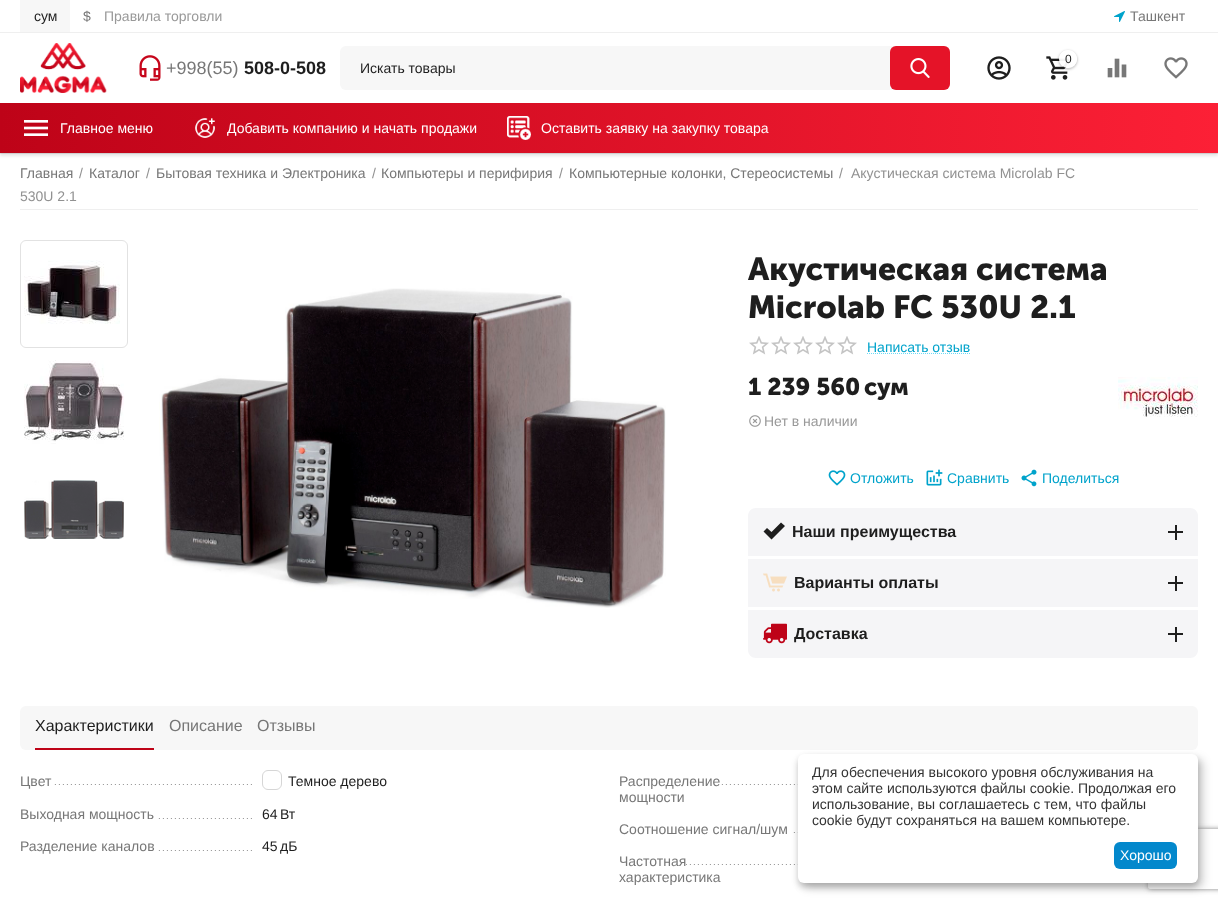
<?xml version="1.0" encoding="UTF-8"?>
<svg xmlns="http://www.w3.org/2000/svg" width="1218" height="903">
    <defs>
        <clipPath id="clip1"><path d="M 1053 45 H 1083 V 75 H 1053 Z M 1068 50 C 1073 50 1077 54 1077 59 C 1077 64 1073 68 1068 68 C 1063 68 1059 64 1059 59 C 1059 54 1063 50 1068 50 Z" clip-rule="evenodd"/></clipPath>
        <filter id="blur1" x="-50%" y="-200%" width="200%" height="500%"><feGaussianBlur stdDeviation="1.5"/></filter>
        <filter id="blur2" x="-50%" y="-200%" width="200%" height="500%"><feGaussianBlur stdDeviation="0.5"/></filter>
        <linearGradient id="g1" gradientUnits="userSpaceOnUse" x1="1218" y1="128" x2="0" y2="128"><stop offset="0" stop-color="#FC2036"/><stop offset="1" stop-color="#BE0318"/></linearGradient>
        <filter id="blur3" x="-50%" y="-200%" width="200%" height="500%"><feGaussianBlur stdDeviation="5"/></filter>
        <filter id="blur4" x="-50%" y="-200%" width="200%" height="500%"><feGaussianBlur stdDeviation="3"/></filter>
        <clipPath id="clip2"><path d="M 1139 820 H 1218 V 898 H 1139 Z M 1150 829 H 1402 C 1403 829 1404 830 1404 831 V 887 C 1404 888 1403 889 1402 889 H 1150 C 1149 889 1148 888 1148 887 V 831 C 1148 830 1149 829 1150 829 Z" clip-rule="evenodd"/></clipPath>
        <filter id="blur5" x="-50%" y="-200%" width="200%" height="500%"><feGaussianBlur stdDeviation="2.5"/></filter>
    </defs>
    <rect width="100%" height="100%" fill="#FFFFFF"/>
    <rect x="0" y="32" width="1218" height="1" fill="#EFEFEF"/>
    <rect x="20" y="0" width="50" height="32" fill="#F7F7F7"/>
    <text x="34" y="21" font-family="Liberation Sans" font-size="14" fill="#1E1E1E">сум</text>
    <text x="83" y="21" font-family="Liberation Sans" font-size="14" fill="#777777">$</text>
    <text x="104" y="21" font-family="Liberation Sans" font-size="14" fill="#999999">Правила торговли</text>
    <image x="1114" y="11" width="11" height="11" href="img_01.png"/>
    <text x="1130" y="21" font-family="Liberation Sans" font-size="14" fill="#777777">Ташкент</text>
    <image x="20" y="43" width="87" height="50" href="img_02.png"/>
    <image x="987" y="56" width="24" height="24" href="img_03.png"/>
    <image x="1046" y="56" width="24" height="24" href="img_04.png"/>
    <g clip-path="url(#clip1)">
        <rect x="1059" y="51" width="18" height="18" rx="9" fill="#1E1E1E" fill-opacity="0.35" filter="url(#blur1)"/>
    </g>
    <circle cx="1068" cy="59" r="9" fill="#FFFFFF" fill-opacity="0.95"/>
    <text x="1065" y="63" font-family="Liberation Sans" font-size="12" fill="#1E1E1E">0</text>
    <image x="1107" y="58" width="20" height="20" href="img_05.png"/>
    <image x="1164" y="57" width="24" height="22" href="img_06.png"/>
    <image x="139" y="55" width="22" height="26" href="img_07.png"/>
    <text x="166" y="74" font-family="Liberation Sans" font-size="18" fill="#777777">+998(55)</text>
    <text x="244" y="74" font-family="Liberation Sans" font-size="18" font-weight="700" fill="#1E1E1E">508-0-508</text>
    <rect x="340" y="46" width="610" height="44" rx="6" fill="#F7F7F7"/>
    <text x="360" y="73" font-family="Liberation Sans" font-size="14" fill="#1E1E1E">Искать товары</text>
    <rect x="890" y="46" width="60" height="44" rx="6" fill="#E51328"/>
    <image x="910" y="58" width="20" height="20" href="img_08.png"/>
    <rect x="0" y="106" width="1218" height="50" fill="#000000" fill-opacity="0.1" filter="url(#blur1)"/>
    <rect x="0" y="104" width="1218" height="50" fill="#000000" fill-opacity="0.1" filter="url(#blur2)"/>
    <rect x="0" y="103" width="1218" height="50" fill="url(#g1)"/>
    <image x="24" y="120" width="24" height="16" href="img_09.png"/>
    <text x="60" y="133" font-family="Liberation Sans" font-size="14" fill="#FFFFFF">Главное меню</text>
    <image x="195" y="118" width="20" height="20" href="img_10.png"/>
    <text x="227" y="133" font-family="Liberation Sans" font-size="14" fill="#FFFFFF">Добавить компанию и начать продажи</text>
    <image x="507" y="116" width="24" height="24" href="img_11.png"/>
    <text x="541" y="133" font-family="Liberation Sans" font-size="14" fill="#FFFFFF">Оставить заявку на закупку товара</text>
    <rect x="20" y="209" width="1178" height="1" fill="#EFEFEF"/>
    <text x="20" y="178" font-family="Liberation Sans" font-size="14" fill="#777777">Главная</text>
    <text x="79" y="178" font-family="Liberation Sans" font-size="14" fill="#919191">/</text>
    <text x="89" y="178" font-family="Liberation Sans" font-size="14" fill="#777777">Каталог</text>
    <text x="146" y="178" font-family="Liberation Sans" font-size="14" fill="#919191">/</text>
    <text x="156" y="178" font-family="Liberation Sans" font-size="14" fill="#777777">Бытовая техника и Электроника</text>
    <text x="372" y="178" font-family="Liberation Sans" font-size="14" fill="#919191">/</text>
    <text x="381" y="178" font-family="Liberation Sans" font-size="14" fill="#777777">Компьютеры и перифирия</text>
    <text x="559" y="178" font-family="Liberation Sans" font-size="14" fill="#919191">/</text>
    <text x="569" y="178" font-family="Liberation Sans" font-size="14" fill="#777777">Компьютерные колонки, Стереосистемы</text>
    <text x="839" y="178" font-family="Liberation Sans" font-size="14" fill="#919191">/</text>
    <text x="851" y="178" font-family="Liberation Sans" font-size="14" fill="#919191">Акустическая система Microlab FC</text>
    <text x="20" y="201" font-family="Liberation Sans" font-size="14" fill="#919191">530U 2.1</text>
    <rect x="20.5" y="240.5" width="107" height="107" rx="5.5" fill="none" stroke="#E2E2E2"/>
    <image x="24" y="260" width="96" height="64" href="img_12.png"/>
    <image x="24" y="360" width="100" height="84" href="img_13.png"/>
    <image x="24" y="480" width="100" height="59" href="img_14.png"/>
    <image x="159" y="288" width="507" height="320" href="img_15.png"/>
    <text font-family="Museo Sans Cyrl" font-size="32" font-weight="700" fill="#1E1E1E">
        <tspan x="748" y="280">Акустическая система</tspan>
        <tspan x="748" y="318">Microlab FC 530U 2.1</tspan>
    </text>
    <image x="749" y="336" width="108" height="19" href="img_16.png"/>
    <text x="867" y="352" font-family="Liberation Sans" font-size="14" fill="#00A3CB">Написать отзыв</text>
    <path d="M 867 353.5 H 970" fill="none" stroke="#6DDCF7" stroke-dasharray="1 1"/>
    <text x="748" y="395" font-family="Museo Sans Cyrl" font-size="24" font-weight="700" fill="#1E1E1E">1 239 560</text>
    <text x="864" y="395" font-family="Museo Sans Cyrl" font-size="24" font-weight="700" fill="#1E1E1E">сум</text>
    <image x="1118" y="377" width="80" height="40" href="img_17.png"/>
    <image x="749" y="415" width="12" height="12" href="img_18.png"/>
    <text x="764" y="426" font-family="Liberation Sans" font-size="14" fill="#999999">Нет в наличии</text>
    <image x="828" y="470" width="18" height="16" href="img_19.png"/>
    <text x="850" y="483" font-family="Liberation Sans" font-size="14" fill="#00A3CB">Отложить</text>
    <image x="926" y="469" width="17" height="17" href="img_20.png"/>
    <text x="947" y="483" font-family="Liberation Sans" font-size="14" fill="#00A3CB">Сравнить</text>
    <image x="1021" y="469" width="16" height="18" href="img_21.png"/>
    <text x="1042" y="483" font-family="Liberation Sans" font-size="14" fill="#00A3CB">Поделиться</text>
    <path d="M 756 508 H 1190 C 1194.5 508 1198 511.5 1198 516 V 556 H 748 V 516 C 748 511.5 751.5 508 756 508 Z" fill="#F5F5F7"/>
    <path d="M 771.5 539.5 L 763.5 531.5 L 767 528 L 771.5 532 L 781 522.5 L 785 526 Z" fill="#1E1E1E"/>
    <text x="792" y="537" font-family="Liberation Sans" font-size="16" font-weight="700" fill="#1E1E1E">Наши преимущества</text>
    <rect x="1175" y="525" width="2" height="15" fill="#1E1E1E"/>
    <rect x="1168" y="531" width="15" height="2" fill="#1E1E1E"/>
    <rect x="748" y="559" width="450" height="48" fill="#F5F5F7"/>
    <image x="763" y="573" width="24" height="19" href="img_22.png"/>
    <text x="794" y="588" font-family="Liberation Sans" font-size="16" font-weight="700" fill="#1E1E1E">Варианты оплаты</text>
    <rect x="1175" y="576" width="2" height="15" fill="#1E1E1E"/>
    <rect x="1168" y="582" width="15" height="2" fill="#1E1E1E"/>
    <path d="M 748 610 H 1198 V 650 C 1198 654.5 1194.5 658 1190 658 H 756 C 751.5 658 748 654.5 748 650 Z" fill="#F5F5F7"/>
    <image x="763" y="623" width="24" height="21" href="img_23.png"/>
    <text x="794" y="639" font-family="Liberation Sans" font-size="16" font-weight="700" fill="#1E1E1E">Доставка</text>
    <rect x="1175" y="627" width="2" height="15" fill="#1E1E1E"/>
    <rect x="1168" y="633" width="15" height="2" fill="#1E1E1E"/>
    <rect x="20" y="706" width="1178" height="44" rx="6" fill="#F7F7F7"/>
    <rect x="35" y="748" width="119" height="2" fill="#BE0318"/>
    <text x="35" y="731" font-family="Liberation Sans" font-size="16" fill="#1E1E1E">Характеристики</text>
    <text x="169" y="731" font-family="Liberation Sans" font-size="16" fill="#777777">Описание</text>
    <text x="257" y="731" font-family="Liberation Sans" font-size="16" fill="#777777">Отзывы</text>
    <text x="20" y="786" font-family="Liberation Sans" font-size="14" fill="#777777">Цвет</text>
    <image x="54" y="784" width="198" height="1" href="img_24.png"/>
    <rect x="262.5" y="770.5" width="19" height="19" rx="5.5" fill="none" stroke="#D6D6D6"/>
    <text x="288" y="786" font-family="Liberation Sans" font-size="14" fill="#1E1E1E">Темное дерево</text>
    <text font-family="Liberation Sans" font-size="14" fill="#777777">
        <tspan x="619" y="786">Распределение</tspan>
        <tspan x="619" y="802">мощности</tspan>
    </text>
    <image x="720" y="784" width="78" height="1" href="img_25.png"/>
    <text x="20" y="819" font-family="Liberation Sans" font-size="14" fill="#777777">Выходная мощность</text>
    <image x="157" y="818" width="95" height="1" href="img_26.png"/>
    <text x="262" y="819" font-family="Liberation Sans" font-size="14" fill="#1E1E1E">64</text>
    <text x="280" y="819" font-family="Liberation Sans" font-size="14" fill="#1E1E1E">Вт</text>
    <text x="619" y="834" font-family="Liberation Sans" font-size="14" fill="#777777">Соотношение сигнал/шум</text>
    <image x="791" y="832" width="7" height="1" href="img_27.png"/>
    <text x="20" y="851" font-family="Liberation Sans" font-size="14" fill="#777777">Разделение каналов</text>
    <image x="158" y="850" width="94" height="1" href="img_28.png"/>
    <text x="262" y="851" font-family="Liberation Sans" font-size="14" fill="#1E1E1E">45</text>
    <text x="280" y="851" font-family="Liberation Sans" font-size="14" fill="#1E1E1E">дБ</text>
    <text font-family="Liberation Sans" font-size="14" fill="#777777">
        <tspan x="619" y="866">Частотная</tspan>
        <tspan x="619" y="882">характеристика</tspan>
    </text>
    <image x="686" y="864" width="112" height="1" href="img_29.png"/>
    <rect x="803" y="759" width="400" height="129" rx="6" fill="#000000" fill-opacity="0.19" filter="url(#blur3)"/>
    <rect x="798" y="758" width="400" height="129" rx="6" fill="#000000" fill-opacity="0.2" filter="url(#blur4)"/>
    <g clip-path="url(#clip2)">
        <rect x="1148" y="829" width="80" height="60" rx="2" fill="#808080" filter="url(#blur5)"/>
    </g>
    <rect x="798" y="754" width="400" height="129" rx="6" fill="#FFFFFF"/>
    <text font-family="Liberation Sans" font-size="14" fill="#333333">
        <tspan x="812" y="777">Для обеспечения высокого уровня обслуживания на</tspan>
        <tspan x="812" y="793">этом сайте используются файлы cookie. Продолжая его</tspan>
        <tspan x="812" y="809">использование, вы соглашаетесь с тем, что файлы</tspan>
        <tspan x="812" y="825">cookie будут сохраняться на вашем компьютере.</tspan>
    </text>
    <rect x="1114" y="842" width="63" height="27" rx="6" fill="#0388CC"/>
    <text x="1120" y="860" font-family="Liberation Sans" font-size="14" fill="#FFFFFF">Хорошо</text>
</svg>
